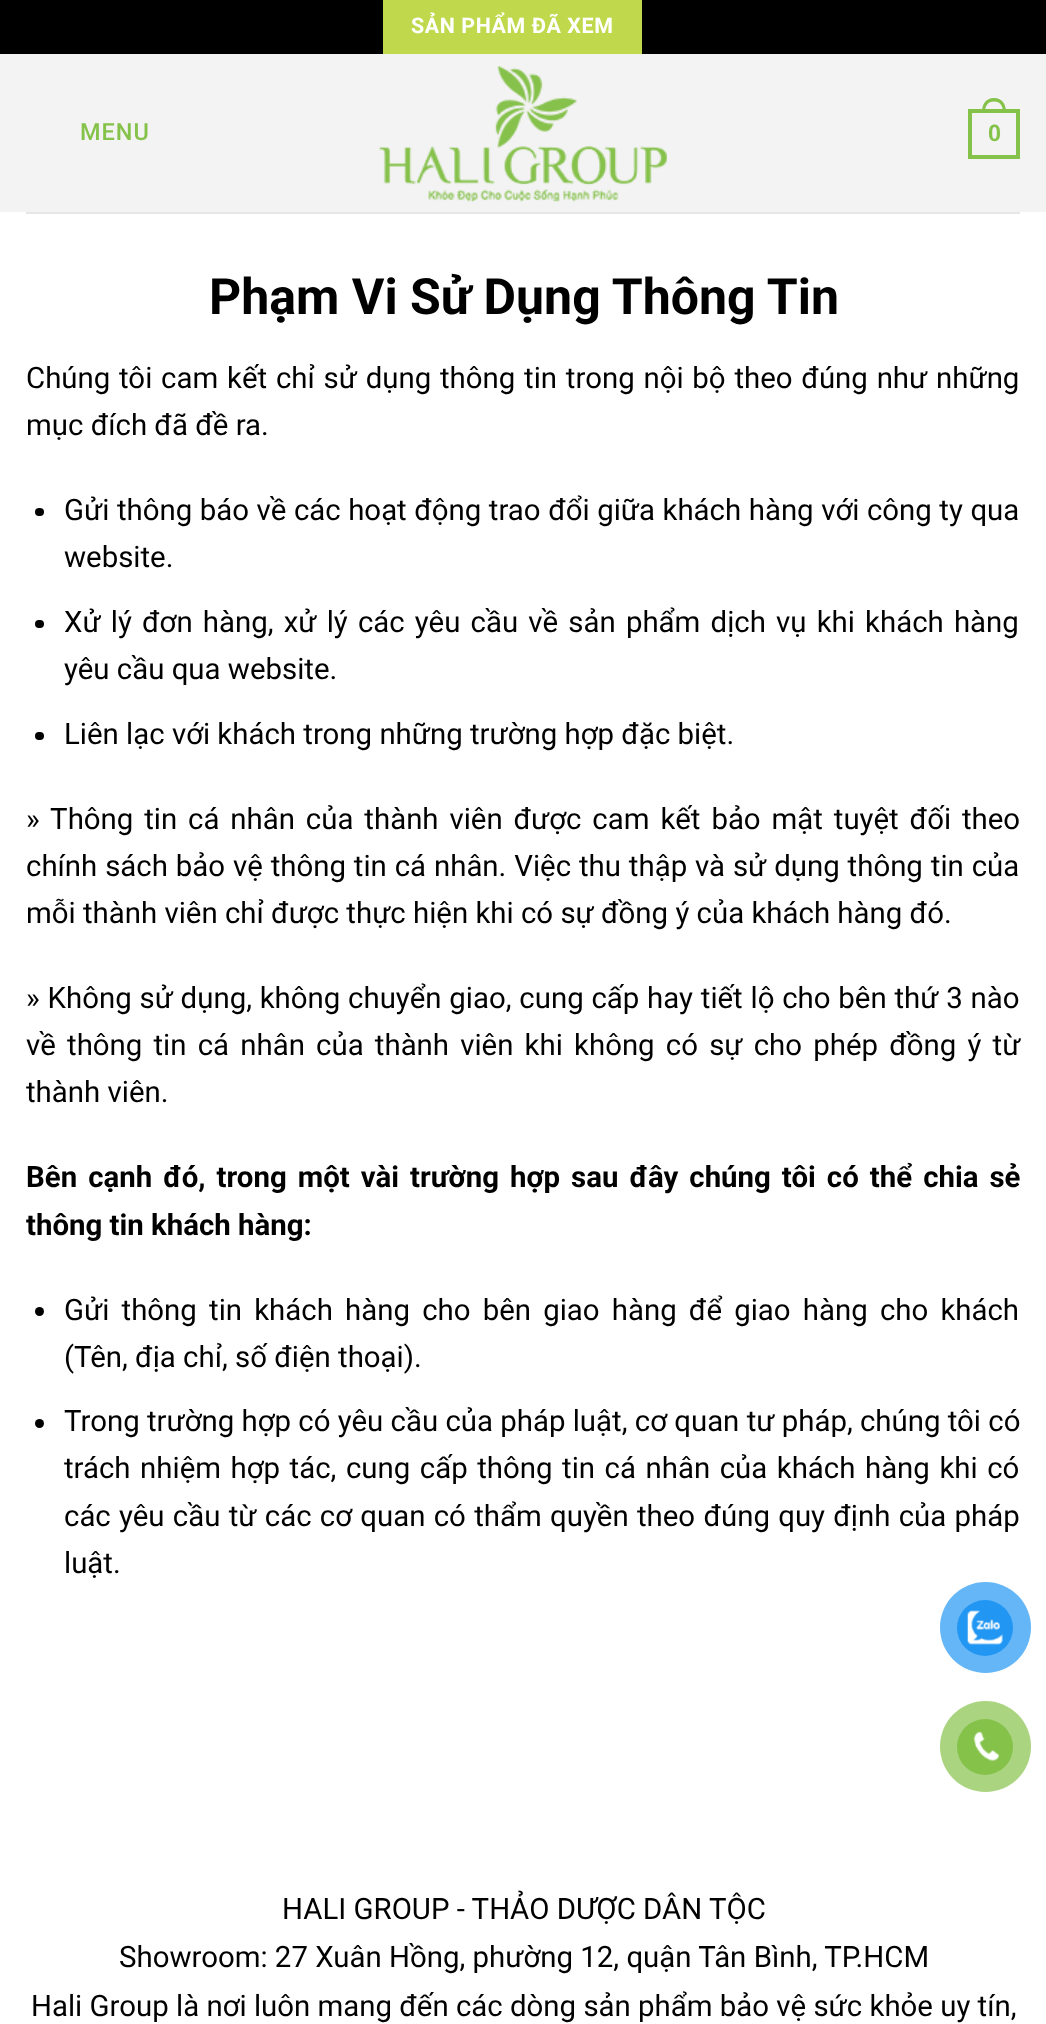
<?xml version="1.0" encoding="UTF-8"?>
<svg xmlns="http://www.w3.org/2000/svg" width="1046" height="2024">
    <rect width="100%" height="100%" fill="#FFFFFF"/>
    <rect x="0" y="0" width="1046" height="54" fill="#000000"/>
    <rect x="383" y="0" width="259" height="54" fill="#C0D94C"/>
    <text x="411" y="33" font-family="Roboto" font-size="21.4" font-weight="700" letter-spacing="0.6" fill="#FFFFFF">SẢN PHẨM ĐÃ XEM</text>
    <rect x="0" y="54" width="1046" height="158" fill="#F3F3F3"/>
    <text x="80" y="140" font-family="Roboto" font-size="23.5" font-weight="500" letter-spacing="1" fill="#85C24A">MENU</text>
    <image x="379" y="66" width="288" height="136" href="img_01.png"/>
    <rect x="970" y="111" width="48" height="46" fill="none" stroke="#85C24A" stroke-width="4"/>
    <path d="M 994 98 C 1002.5 98 1006 104.5 1006 112 H 982 C 982 104.5 985.5 98 994 98 Z M 994 101.5 C 1000.5 101.5 1003 106.5 1003 112 H 985 C 985 106.5 987.5 101.5 994 101.5 Z" fill="#85C24A" fill-rule="evenodd"/>
    <text x="988" y="141" font-family="Liberation Sans" font-size="23.5" font-weight="700" fill="#85C24A">0</text>
    <rect x="26" y="212" width="994" height="2" fill="#E6E6E6"/>
    <text x="209" y="314" font-family="Roboto" font-size="50" font-weight="700" fill="#000000">Phạm Vi Sử Dụng Thông Tin</text>
    <text font-family="Roboto" font-size="29.4" fill="#000000">
        <tspan x="26" y="388" word-spacing="1.5">Chúng tôi cam kết chỉ sử dụng thông tin trong nội bộ theo đúng như những</tspan>
        <tspan x="26" y="435">mục đích đã đề ra.</tspan>
    </text>
    <rect x="35" y="508" width="9" height="8" rx="4" fill="#000000"/>
    <text font-family="Roboto" font-size="29.4" fill="#000000">
        <tspan x="64" y="520" word-spacing="0.25">Gửi thông báo về các hoạt động trao đổi giữa khách hàng với công ty qua</tspan>
        <tspan x="64" y="567">website.</tspan>
    </text>
    <rect x="35" y="620" width="9" height="8" rx="4" fill="#000000"/>
    <text font-family="Roboto" font-size="29.4" fill="#000000">
        <tspan x="64" y="632" word-spacing="2.9">Xử lý đơn hàng, xử lý các yêu cầu về sản phẩm dịch vụ khi khách hàng</tspan>
        <tspan x="64" y="679">yêu cầu qua website.</tspan>
    </text>
    <rect x="35" y="732" width="9" height="8" rx="4" fill="#000000"/>
    <text x="64" y="744" font-family="Roboto" font-size="29.4" fill="#000000">Liên lạc với khách trong những trường hợp đặc biệt.</text>
    <text font-family="Roboto" font-size="29.4" fill="#000000">
        <tspan x="26" y="829" word-spacing="3.6">» Thông tin cá nhân của thành viên được cam kết bảo mật tuyệt đối theo</tspan>
        <tspan x="26" y="876" word-spacing="0.6">chính sách bảo vệ thông tin cá nhân. Việc thu thập và sử dụng thông tin của</tspan>
        <tspan x="26" y="923">mỗi thành viên chỉ được thực hiện khi có sự đồng ý của khách hàng đó.</tspan>
    </text>
    <text font-family="Roboto" font-size="29.4" fill="#000000">
        <tspan x="26" y="1008" word-spacing="0.5">» Không sử dụng, không chuyển giao, cung cấp hay tiết lộ cho bên thứ 3 nào</tspan>
        <tspan x="26" y="1055" word-spacing="3.9">về thông tin cá nhân của thành viên khi không có sự cho phép đồng ý từ</tspan>
        <tspan x="26" y="1102">thành viên.</tspan>
    </text>
    <text font-family="Roboto" font-size="29.4" font-weight="700" fill="#000000">
        <tspan x="26" y="1187" word-spacing="3.75">Bên cạnh đó, trong một vài trường hợp sau đây chúng tôi có thể chia sẻ</tspan>
        <tspan x="26" y="1235">thông tin khách hàng:</tspan>
    </text>
    <circle cx="39.5" cy="1311.5" r="4.5" fill="#000000"/>
    <text font-family="Roboto" font-size="29.4" fill="#000000">
        <tspan x="64" y="1320" word-spacing="4.9">Gửi thông tin khách hàng cho bên giao hàng để giao hàng cho khách</tspan>
        <tspan x="64" y="1367">(Tên, địa chỉ, số điện thoại).</tspan>
    </text>
    <circle cx="39.5" cy="1423.5" r="4.5" fill="#000000"/>
    <text font-family="Roboto" font-size="29.4" fill="#000000">
        <tspan x="64" y="1431">Trong trường hợp có yêu cầu của pháp luật, cơ quan tư pháp, chúng tôi có</tspan>
        <tspan x="64" y="1478" word-spacing="2.25">trách nhiệm hợp tác, cung cấp thông tin cá nhân của khách hàng khi có</tspan>
        <tspan x="64" y="1526" word-spacing="1">các yêu cầu từ các cơ quan có thẩm quyền theo đúng quy định của pháp</tspan>
        <tspan x="64" y="1573">luật.</tspan>
    </text>
    <text x="282" y="1919" font-family="Roboto" font-size="29.4" fill="#000000">HALI GROUP - THẢO DƯỢC DÂN TỘC</text>
    <text x="119" y="1967" font-family="Roboto" font-size="29.4" fill="#000000">Showroom: 27 Xuân Hồng, phường 12, quận Tân Bình, TP.HCM</text>
    <text x="31" y="2016" font-family="Roboto" font-size="29.4" fill="#000000">Hali Group là nơi luôn mang đến các dòng sản phẩm bảo vệ sức khỏe uy tín,</text>
    <circle cx="985.5" cy="1627.5" r="45.5" fill="#64B6F7"/>
    <circle cx="985" cy="1628" r="28" fill="#2196F3"/>
    <image x="967" y="1610" width="36" height="35" href="img_02.png"/>
    <circle cx="985.5" cy="1746.5" r="45.5" fill="#AAD480"/>
    <circle cx="985" cy="1747" r="28" fill="#85C24A"/>
    <image x="973" y="1731" width="27" height="31" href="img_03.png"/>
</svg>
